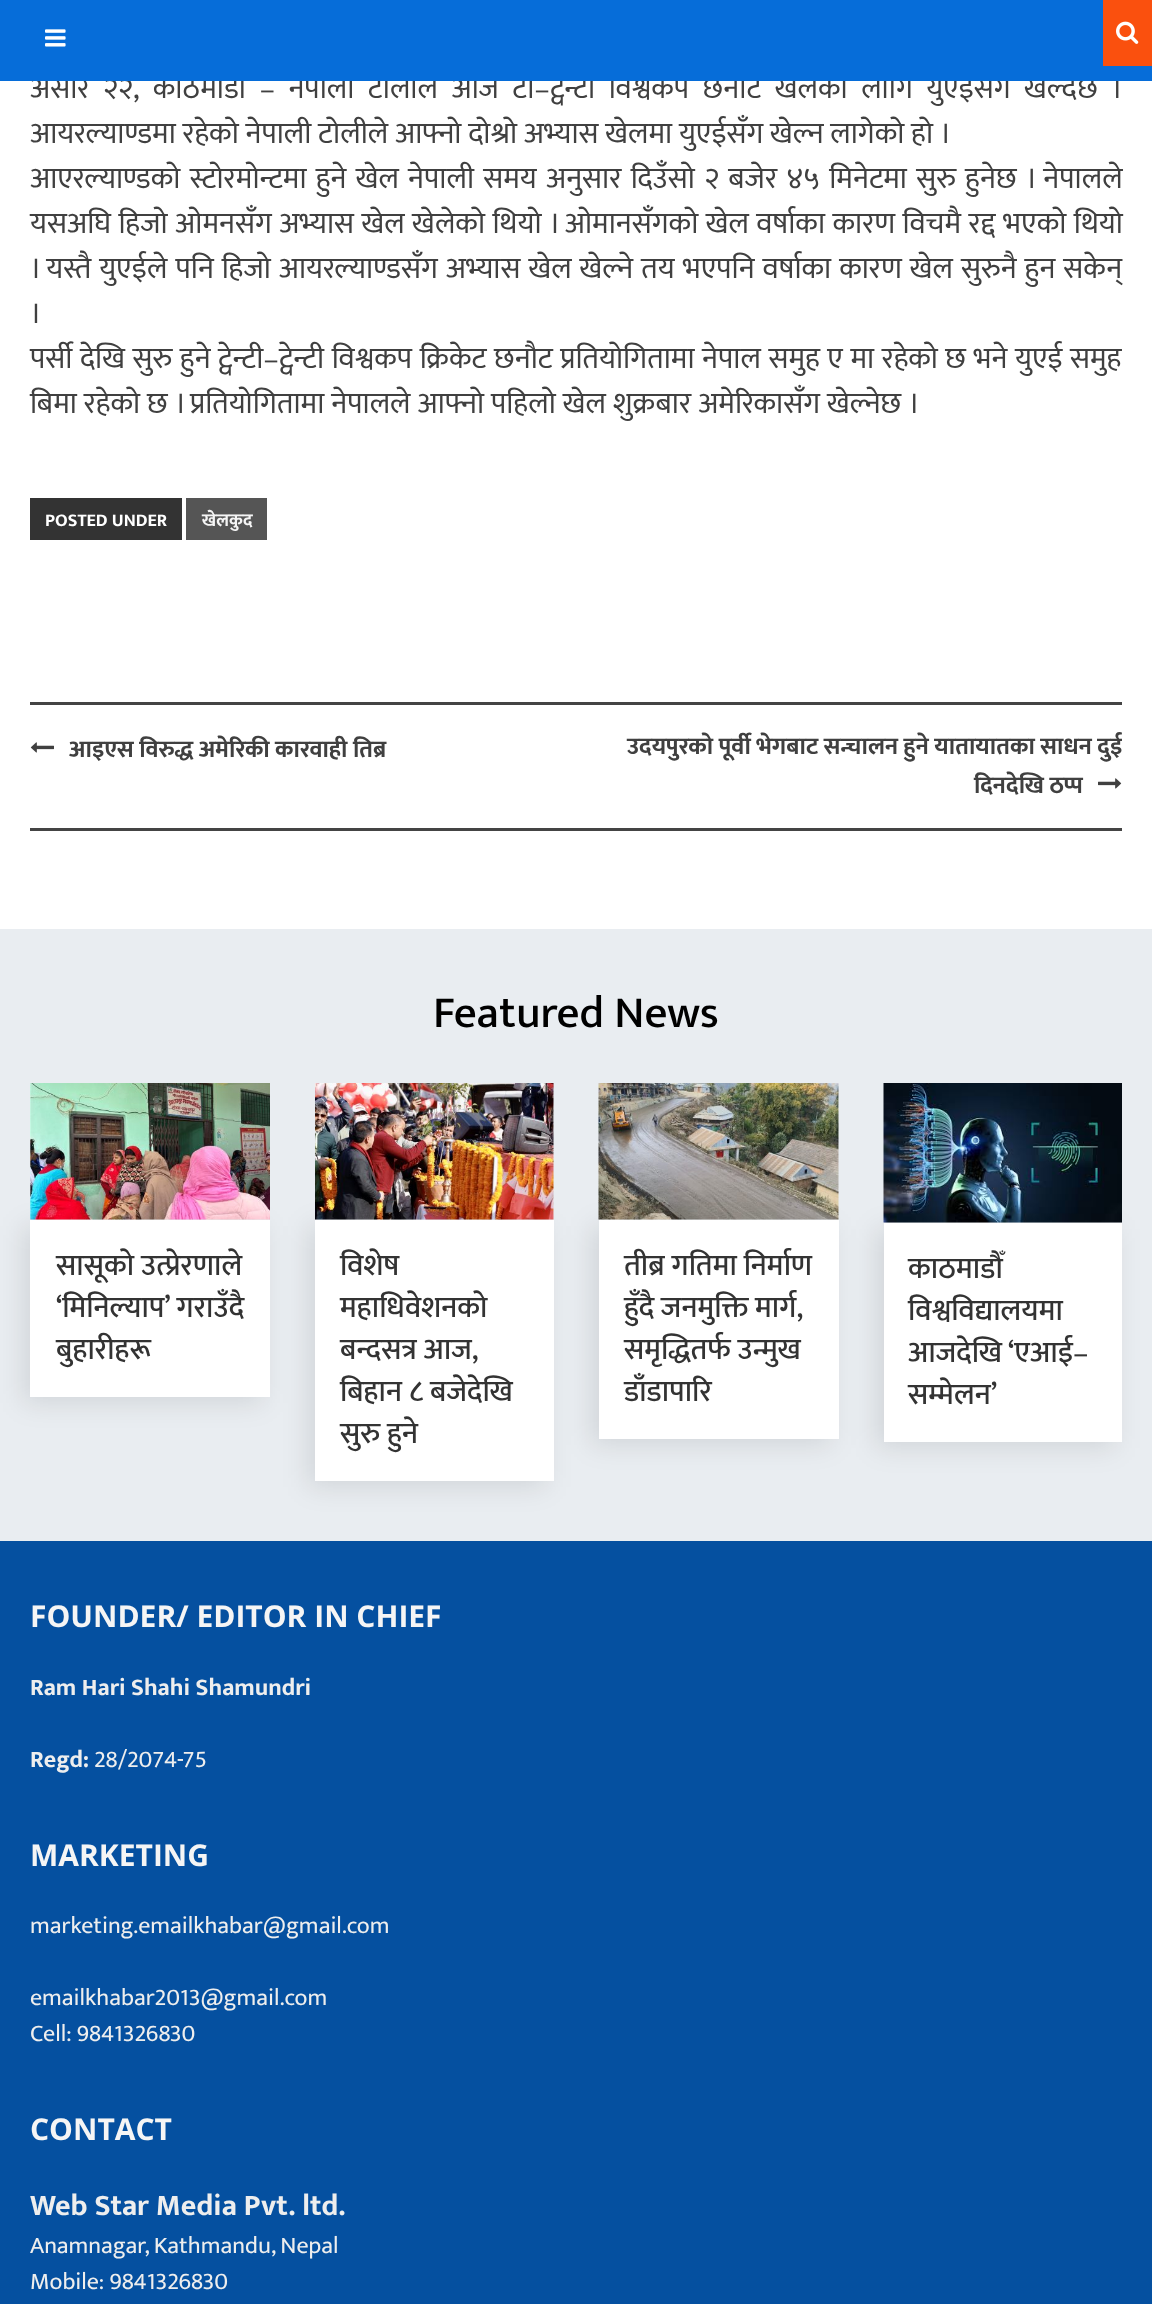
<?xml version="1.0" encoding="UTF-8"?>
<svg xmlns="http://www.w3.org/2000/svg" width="1152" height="2304">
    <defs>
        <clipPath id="clip1"><rect x="30" y="705" width="1092" height="123"/></clipPath>
        <filter id="blur1" x="-50%" y="-200%" width="200%" height="500%"><feGaussianBlur stdDeviation="13.5"/></filter>
    </defs>
    <rect width="100%" height="100%" fill="#FFFFFF"/>
    <text x="30" y="98" word-spacing="6.75" font-family="Mukta" font-size="30" fill="#404040">असार २२, काठमाडौं – नेपाली टोलीले आज टी–ट्वेन्टी विश्वकप छनौट खेलका लागि युएईसँग खेल्दैछ ।</text>
    <rect x="0" y="0" width="1152" height="81" fill="#066DD9"/>
    <image x="45" y="29" width="21" height="18" href="img_01.png"/>
    <rect x="1103" y="0" width="49" height="66" fill="#FA500E"/>
    <image x="1116" y="21" width="23" height="23" href="img_02.png"/>
    <text font-family="Mukta" font-size="30" fill="#404040">
        <tspan x="30" y="143">आयरल्याण्डमा रहेको नेपाली टोलीले आफ्नो दोश्रो अभ्यास खेलमा युएईसँग खेल्न लागेको हो ।</tspan>
        <tspan x="30" y="188" word-spacing="2.5">आएरल्याण्डको स्टोरमोन्टमा हुने खेल नेपाली समय अनुसार दिउँसो २ बजेर ४५ मिनेटमा सुरु हुनेछ । नेपालले</tspan>
        <tspan x="30" y="233" word-spacing="0.75">यसअघि हिजो ओमनसँग अभ्यास खेल खेलेको थियो । ओमानसँगको खेल वर्षाका कारण विचमै रद्द भएको थियो</tspan>
        <tspan x="30" y="278" word-spacing="1.25">। यस्तै युएईले पनि हिजो आयरल्याण्डसँग अभ्यास खेल खेल्ने तय भएपनि वर्षाका कारण खेल सुरुनै हुन सकेन्</tspan>
        <tspan x="30" y="323">।</tspan>
        <tspan x="30" y="368" word-spacing="0.8">पर्सी देखि सुरु हुने ट्वेन्टी–ट्वेन्टी विश्वकप क्रिकेट छनौट प्रतियोगितामा नेपाल समुह ए मा रहेको छ भने युएई समुह</tspan>
        <tspan x="30" y="413" word-spacing="0.25">बिमा रहेको छ । प्रतियोगितामा नेपालले आफ्नो पहिलो खेल शुक्रबार अमेरिकासँग खेल्नेछ ।</tspan>
    </text>
    <rect x="30" y="498" width="152" height="42" fill="#333333"/>
    <text x="45" y="526" font-family="Mukta" font-size="18" font-weight="700" fill="#FFFFFF">POSTED UNDER</text>
    <rect x="186" y="498" width="81" height="42" fill="#555555"/>
    <text x="202" y="526" font-family="Mukta" font-size="18" font-weight="700" fill="#F5F5F5">खेलकुद</text>
    <rect x="30" y="702" width="1092" height="3" fill="#444444"/>
    <rect x="30" y="828" width="1092" height="3" fill="#444444"/>
    <image x="30" y="742" width="24" height="11" href="img_03.png"/>
    <text x="69" y="757" font-family="Mukta" font-size="24" font-weight="700" fill="#404040">आइएस विरुद्ध अमेरिकी कारवाही तिब्र</text>
    <g clip-path="url(#clip1)">
        <text x="627" y="754" font-family="Mukta" font-size="24" font-weight="700" fill="#404040">उदयपुरको पूर्वी भेगबाट सन्चालन हुने यातायातका साधन दुई</text>
    </g>
    <text x="974" y="793" font-family="Mukta" font-size="24" font-weight="700" fill="#404040">दिनदेखि ठप्प</text>
    <image x="1098" y="778" width="24" height="11" href="img_04.png"/>
    <rect x="0" y="1541" width="1152" height="763" fill="#0550A0"/>
    <rect x="0" y="929" width="1152" height="612" fill="#E9EDF1"/>
    <text x="433" y="1027" font-family="Mukta" font-size="45" font-weight="500" fill="#000000">Featured News</text>
    <rect x="23" y="1226" width="240" height="177" fill="#000000" fill-opacity="0.1" filter="url(#blur1)"/>
    <image x="30" y="1083" width="240" height="137" href="img_05.png"/>
    <rect x="30" y="1220" width="240" height="177" fill="#FFFFFF"/>
    <text font-family="Mukta" font-size="30" font-weight="500" fill="#333333">
        <tspan x="56" y="1275">सासूको उत्प्रेरणाले</tspan>
        <tspan x="56" y="1317" word-spacing="-1">‘मिनिल्याप’ गराउँदै</tspan>
        <tspan x="56" y="1359">बुहारीहरू</tspan>
    </text>
    <rect x="308" y="1226" width="238" height="261" fill="#000000" fill-opacity="0.1" filter="url(#blur1)"/>
    <image x="315" y="1083" width="239" height="137" href="img_06.png"/>
    <rect x="315" y="1220" width="239" height="261" fill="#FFFFFF"/>
    <text font-family="Mukta" font-size="30" font-weight="500" fill="#333333">
        <tspan x="340" y="1275">विशेष</tspan>
        <tspan x="340" y="1317">महाधिवेशनको</tspan>
        <tspan x="340" y="1359">बन्दसत्र आज,</tspan>
        <tspan x="340" y="1401">बिहान ८ बजेदेखि</tspan>
        <tspan x="340" y="1443">सुरु हुने</tspan>
    </text>
    <rect x="591" y="1226" width="240" height="219" fill="#000000" fill-opacity="0.1" filter="url(#blur1)"/>
    <image x="598" y="1083" width="241" height="137" href="img_07.png"/>
    <rect x="599" y="1220" width="240" height="219" fill="#FFFFFF"/>
    <text font-family="Mukta" font-size="30" font-weight="500" fill="#333333">
        <tspan x="624" y="1275">तीब्र गतिमा निर्माण</tspan>
        <tspan x="624" y="1317">हुँदै जनमुक्ति मार्ग,</tspan>
        <tspan x="624" y="1359">समृद्धितर्फ उन्मुख</tspan>
        <tspan x="624" y="1401">डाँडापारि</tspan>
    </text>
    <rect x="876" y="1229" width="239" height="219" fill="#000000" fill-opacity="0.1" filter="url(#blur1)"/>
    <image x="883" y="1083" width="239" height="140" href="img_08.png"/>
    <rect x="884" y="1223" width="238" height="219" fill="#FFFFFF"/>
    <text font-family="Mukta" font-size="30" font-weight="500" fill="#333333">
        <tspan x="908" y="1278">काठमाडौँ</tspan>
        <tspan x="908" y="1320">विश्वविद्यालयमा</tspan>
        <tspan x="908" y="1362" word-spacing="-1">आजदेखि ‘एआई–</tspan>
        <tspan x="908" y="1404">सम्मेलन’</tspan>
    </text>
    <text x="30" y="1627" font-family="Open Sans" font-size="30" font-weight="700" fill="#F5F5F5">FOUNDER/ EDITOR IN CHIEF</text>
    <text x="30" y="1695" font-family="Mukta" font-size="24" font-weight="700" fill="#EEEEEE">Ram Hari Shahi Shamundri</text>
    <text x="30" y="1767" font-family="Mukta" font-size="24" font-weight="700" fill="#EEEEEE">Regd:</text>
    <text x="94" y="1767" font-family="Mukta" font-size="24" fill="#EEEEEE">28/2074-75</text>
    <text x="30" y="1866" font-family="Open Sans" font-size="30" font-weight="700" fill="#F5F5F5">MARKETING</text>
    <text x="30" y="1933" font-family="Mukta" font-size="24" fill="#EEEEEE">marketing.emailkhabar@gmail.com</text>
    <text font-family="Mukta" font-size="24" fill="#EEEEEE">
        <tspan x="30" y="2005">emailkhabar2013@gmail.com</tspan>
        <tspan x="30" y="2041">Cell: 9841326830</tspan>
    </text>
    <text x="30" y="2140" font-family="Open Sans" font-size="30" font-weight="700" fill="#F5F5F5">CONTACT</text>
    <text x="30" y="2215" font-family="Mukta" font-size="30" font-weight="700" fill="#EEEEEE">Web Star Media Pvt. ltd.</text>
    <text font-family="Mukta" font-size="24" fill="#EEEEEE">
        <tspan x="30" y="2253" word-spacing="-1">Anamnagar, Kathmandu, Nepal</tspan>
        <tspan x="30" y="2289">Mobile: 9841326830</tspan>
    </text>
</svg>
